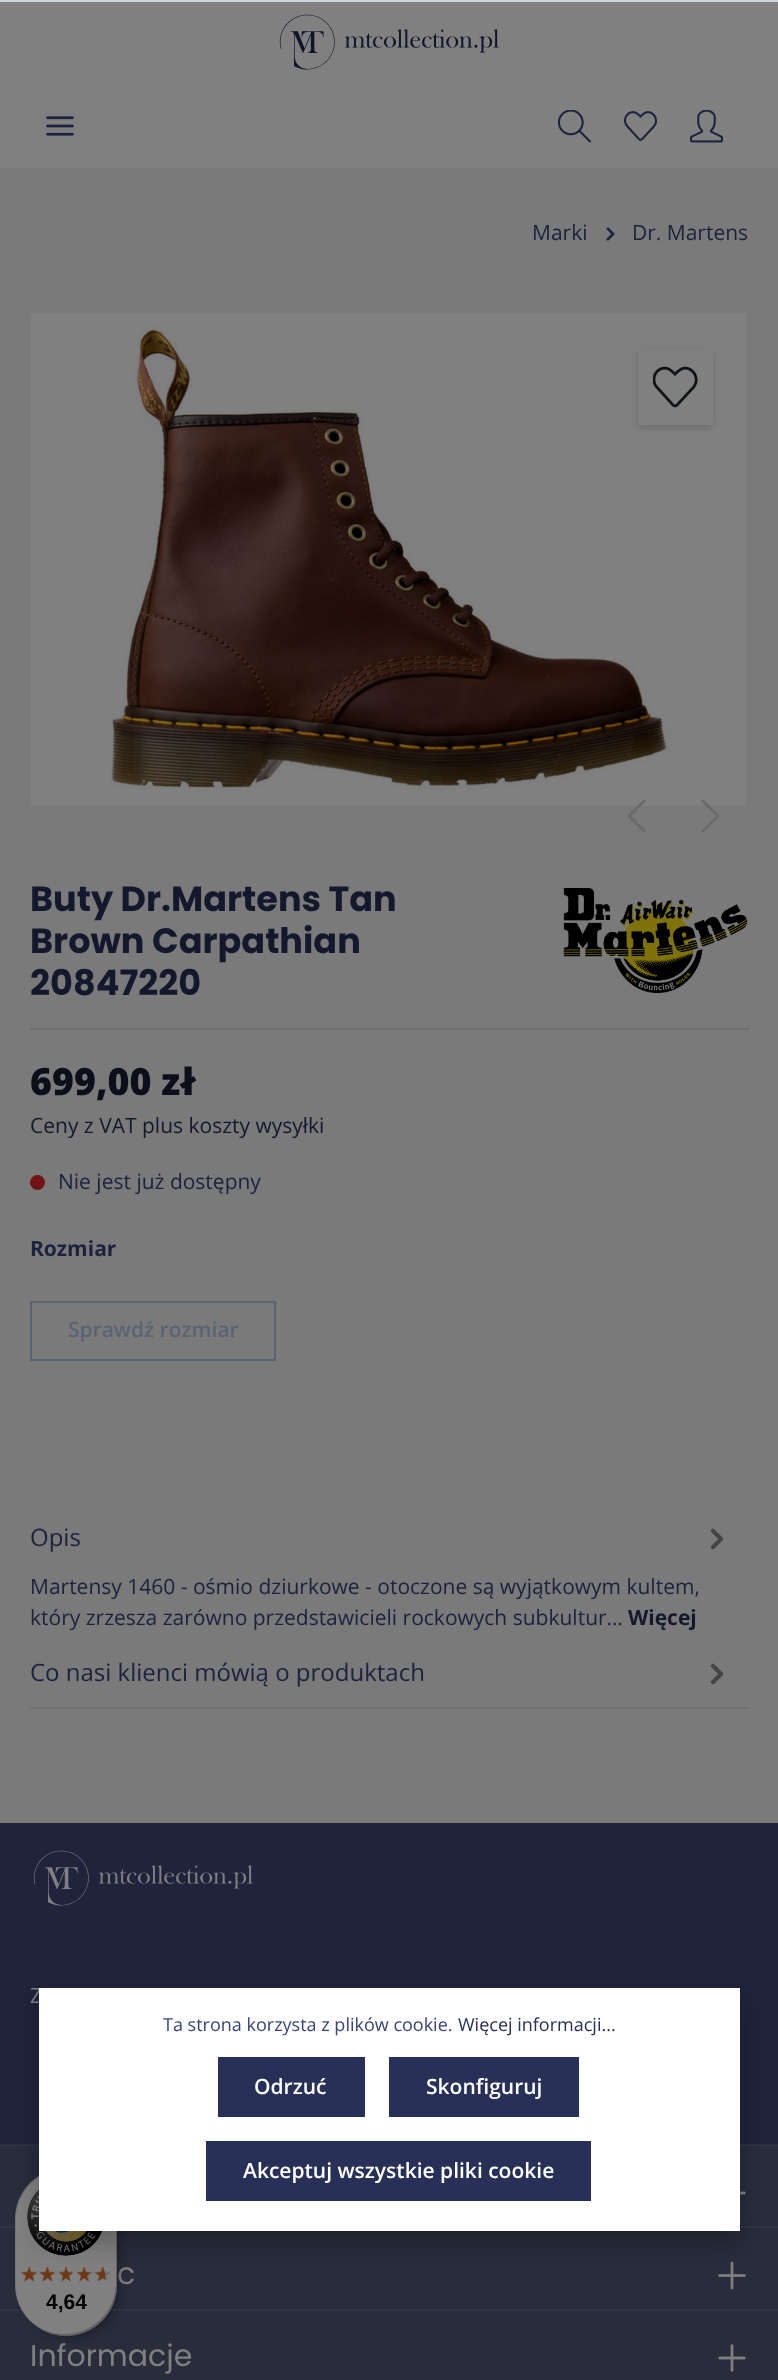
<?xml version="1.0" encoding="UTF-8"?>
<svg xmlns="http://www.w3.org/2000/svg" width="778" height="2380">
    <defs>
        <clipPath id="clip1"><path d="M 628 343 H 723 V 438 H 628 Z M 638 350 H 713 V 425 H 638 Z" clip-rule="evenodd"/></clipPath>
        <filter id="blur1" x="-50%" y="-200%" width="200%" height="500%"><feGaussianBlur stdDeviation="3"/></filter>
        <filter id="blur2" x="-50%" y="-200%" width="200%" height="500%"><feGaussianBlur stdDeviation="6"/></filter>
        <filter id="blur3" x="-50%" y="-200%" width="200%" height="500%"><feGaussianBlur stdDeviation="1.5"/></filter>
        <filter id="blur4" x="-50%" y="-200%" width="200%" height="500%"><feGaussianBlur stdDeviation="12"/></filter>
    </defs>
    <rect width="100%" height="100%" fill="#7A7A7A"/>
    <rect x="0" y="2" width="778" height="166" fill="#808080"/>
    <image x="279" y="14" width="220" height="56" href="img_01.png"/>
    <image x="46" y="116" width="28" height="20" href="img_02.png"/>
    <image x="557" y="110" width="34" height="33" href="img_03.png"/>
    <image x="624" y="111" width="34" height="30" href="img_04.png"/>
    <image x="690" y="110" width="33" height="33" href="img_05.png"/>
    <text x="532" y="240" font-family="Open Sans" font-size="21" fill="#1C223D">Marki</text>
    <image x="606" y="227" width="9" height="14" href="img_06.png"/>
    <text x="632" y="240" font-family="Open Sans" font-size="21" fill="#1C223D">Dr. Martens</text>
    <image x="31" y="313" width="715" height="493" href="img_07.png"/>
    <g clip-path="url(#clip1)">
        <rect x="638" y="353" width="75" height="75" fill="#000000" fill-opacity="0.15" filter="url(#blur1)"/>
    </g>
    <image x="653" y="366" width="45" height="42" href="img_08.png"/>
    <image x="627" y="800" width="19" height="33" href="img_09.png"/>
    <image x="701" y="800" width="19" height="33" href="img_10.png"/>
    <text font-family="Poppins" font-size="35.1" font-weight="700" fill="#14182C">
        <tspan x="30" y="911">Buty Dr.Martens Tan</tspan>
        <tspan x="30" y="953">Brown Carpathian</tspan>
        <tspan x="30" y="995">20847220</tspan>
    </text>
    <image x="563" y="888" width="185" height="105" href="img_11.png"/>
    <rect x="30" y="1028" width="719" height="2" fill="#6E6E6E"/>
    <text x="30" y="1095" font-family="Open Sans" font-size="37.5" font-weight="800" fill="#0C0F1A">699,00 zł</text>
    <text x="30" y="1133" font-family="Open Sans" font-size="21" fill="#14182C">Ceny z VAT plus koszty wysyłki</text>
    <circle cx="37.5" cy="1182.5" r="7.5" fill="#731214"/>
    <text x="58" y="1189" font-family="Open Sans" font-size="21" fill="#1C223D">Nie jest już dostępny</text>
    <text x="30" y="1256" font-family="Open Sans" font-size="21" font-weight="700" fill="#1C223D">Rozmiar</text>
    <rect x="31" y="1302" width="244" height="58" fill="none" stroke="#586374" stroke-width="2"/>
    <text x="68" y="1337" font-family="Open Sans" font-size="21" font-weight="600" fill="#586374">Sprawdź rozmiar</text>
    <rect x="30" y="1707" width="719" height="2" fill="#707273"/>
    <text x="30" y="1546" font-family="Open Sans" font-size="24" fill="#1C223D">Opis</text>
    <image x="710" y="1528" width="14" height="22" href="img_12.png"/>
    <text font-family="Open Sans" font-size="21" fill="#1C223D">
        <tspan x="30" y="1594">Martensy 1460 - ośmio dziurkowe - otoczone są wyjątkowym kultem,</tspan>
        <tspan x="30" y="1625">który zrzesza zarówno przedstawicieli rockowych subkultur…</tspan>
    </text>
    <text x="628" y="1625" font-family="Open Sans" font-size="21" font-weight="700" fill="#14182C">Więcej</text>
    <text x="30" y="1681" font-family="Open Sans" font-size="24" fill="#1C223D">Co nasi klienci mówią o produktach</text>
    <image x="710" y="1663" width="14" height="22" href="img_12.png"/>
    <rect x="0" y="2146" width="778" height="234" fill="#282C3B"/>
    <rect x="0" y="2145" width="778" height="1" fill="#313442"/>
    <rect x="0" y="1823" width="778" height="321" fill="#1F233B"/>
    <rect x="0" y="2144" width="778" height="1" fill="#282D42"/>
    <image x="33" y="1850" width="220" height="56" href="img_13.png"/>
    <text x="30" y="2003" font-family="Open Sans" font-size="21" fill="#808080">Z</text>
    <rect x="0" y="2226" width="778" height="2" fill="#313442"/>
    <image x="740" y="2191" width="6" height="4" href="img_14.png"/>
    <rect x="0" y="2309" width="778" height="2" fill="#313442"/>
    <text x="117" y="2284" font-family="Poppins" font-size="30" fill="#808080">c</text>
    <image x="718" y="2261" width="28" height="29" href="img_15.png"/>
    <text x="30" y="2366" font-family="Poppins" font-size="30" fill="#808080">Informacje</text>
    <image x="718" y="2344" width="28" height="28" href="img_16.png"/>
    <rect x="0" y="0" width="778" height="2" fill="#CED4D9"/>
    <rect x="20" y="2172" width="102" height="168" rx="51" fill="#000000" fill-opacity="0.15" filter="url(#blur2)"/>
    <rect x="17" y="2169" width="102" height="168" rx="51" fill="#000000" fill-opacity="0.15" filter="url(#blur3)"/>
    <rect x="15" y="2168" width="102" height="168" rx="51" fill="#808080"/>
    <path d="M 68 2169 C 78 2169 86 2172 94 2176 C 86 2171 76 2168 66 2168 C 38 2168 15 2191 15 2219 V 2285 C 15 2302 23 2317 36 2326 C 24 2317 16 2302 16 2286 V 2220 C 16 2192 39 2169 68 2169 Z" fill="#000000" fill-opacity="0.1"/>
    <path d="M 22 2310 C 30 2326 47 2336 66 2336 C 94 2336 117 2313 117 2285 V 2219 C 117 2210 115 2201 110 2194 C 114 2201 116 2209 116 2217 V 2283 C 116 2311 93 2334 64 2334 C 46 2334 30 2324 22 2310 Z" fill="#000000" fill-opacity="0.2"/>
    <path d="M 27 2318 C 37 2329 51 2336 66 2336 C 94 2336 117 2313 117 2285 V 2219 C 117 2207 113 2196 106 2187 C 112 2196 116 2206 116 2218 V 2284 C 116 2312 93 2335 65 2335 C 50 2335 37 2329 27 2318 Z" fill="#191919" fill-opacity="0.2"/>
    <path d="M 27 2318 C 37 2329 51 2336 66 2336 C 94 2336 117 2313 117 2285 V 2219 C 117 2204 110 2190 99 2180 C 110 2190 116 2203 116 2218 V 2284 C 116 2312 93 2335 65 2335 C 50 2335 37 2329 27 2318 Z" fill="#808080" fill-opacity="0.3"/>
    <image x="27" y="2189" width="75" height="67" href="img_17.png"/>
    <image x="21" y="2266" width="16" height="16" href="img_18.png"/>
    <image x="41" y="2267" width="14" height="14" href="img_19.png"/>
    <image x="59" y="2267" width="14" height="15" href="img_20.png"/>
    <image x="77" y="2267" width="16" height="14" href="img_21.png"/>
    <image x="95" y="2266" width="16" height="16" href="img_22.png"/>
    <image x="21" y="2266" width="16" height="16" href="img_23.png"/>
    <image x="39" y="2266" width="16" height="16" href="img_24.png"/>
    <image x="59" y="2266" width="14" height="16" href="img_25.png"/>
    <image x="77" y="2266" width="14" height="16" href="img_26.png"/>
    <image x="94" y="2266" width="11" height="16" href="img_27.png"/>
    <rect x="39" y="2000" width="701" height="243" fill="#000000" fill-opacity="0.25" filter="url(#blur4)"/>
    <rect x="39" y="1988" width="701" height="243" fill="#FFFFFF"/>
    <text x="163" y="2031" font-family="Open Sans" font-size="18" fill="#38437A">Ta strona korzysta z plików cookie.</text>
    <text x="458" y="2031" font-family="Open Sans" font-size="18" fill="#283057">Więcej informacji...</text>
    <rect x="218" y="2057" width="147" height="60" fill="#283057"/>
    <text x="254" y="2094" font-family="Open Sans" font-size="21" font-weight="600" fill="#FFFFFF">Odrzuć</text>
    <rect x="389" y="2057" width="190" height="60" fill="#283057"/>
    <text x="426" y="2094" font-family="Open Sans" font-size="21" font-weight="600" fill="#FFFFFF">Skonfiguruj</text>
    <rect x="206" y="2141" width="385" height="60" fill="#283057"/>
    <text x="243" y="2178" font-family="Open Sans" font-size="21" font-weight="600" fill="#FFFFFF">Akceptuj wszystkie pliki cookie</text>
    <text x="46" y="2309" font-family="Liberation Sans" font-size="21" font-weight="700" fill="#000000">4,64</text>
</svg>
